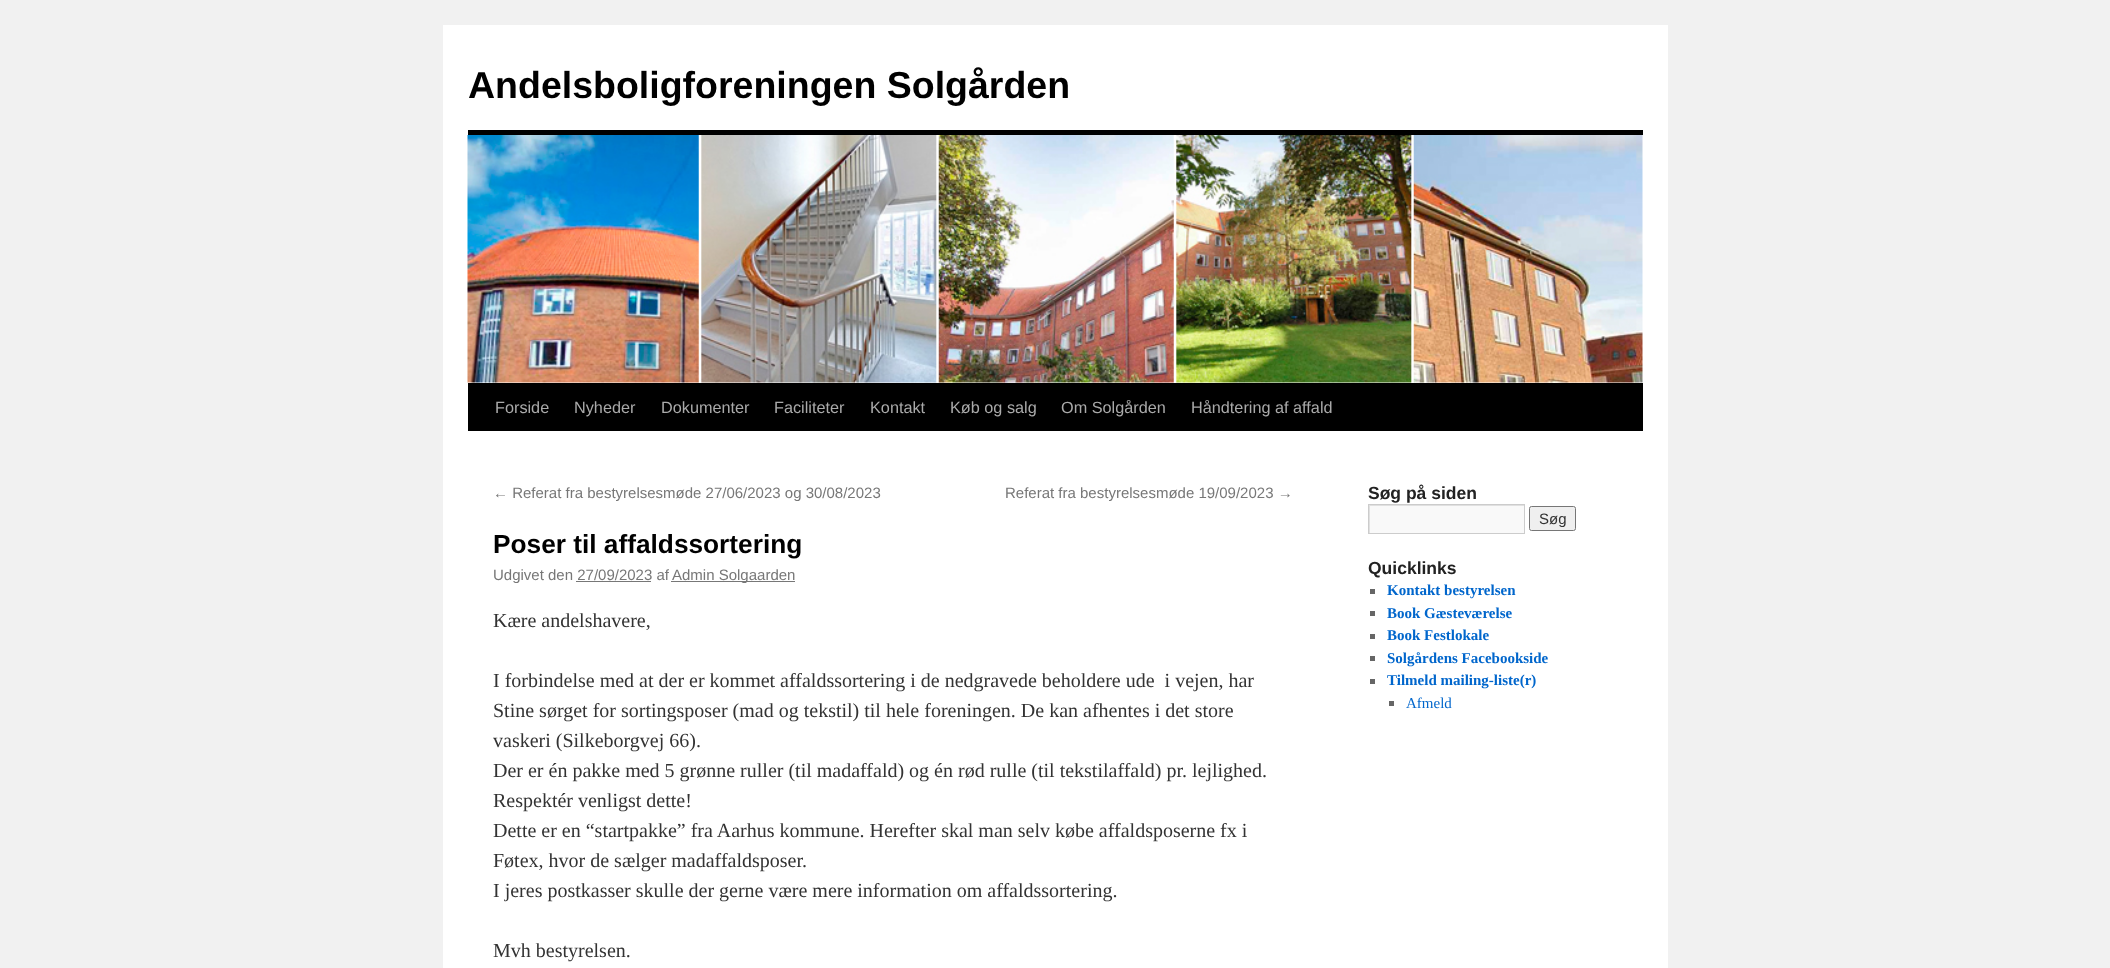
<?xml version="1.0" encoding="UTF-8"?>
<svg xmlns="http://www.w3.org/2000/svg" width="2110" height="968">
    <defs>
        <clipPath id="clip1"><rect x="1369" y="505" width="155" height="28"/></clipPath>
    </defs>
    <rect width="100%" height="100%" fill="#F1F1F1"/>
    <rect x="443" y="25" width="1225" height="943" fill="#FFFFFF"/>
    <text x="468" y="98" font-family="Liberation Sans" font-size="37.5" font-weight="700" fill="#000000">Andelsboligforeningen Solgården</text>
    <rect x="468" y="130" width="1175" height="5" fill="#000000"/>
    <rect x="468" y="383" width="1175" height="48" fill="#000000"/>
    <image x="467" y="135" width="1176" height="248" href="img_01.png"/>
    <text x="495" y="413" font-family="Liberation Sans" font-size="16.25" fill="#AAAAAA">Forside</text>
    <text x="574" y="413" font-family="Liberation Sans" font-size="16.25" fill="#AAAAAA">Nyheder</text>
    <text x="661" y="413" font-family="Liberation Sans" font-size="16.25" fill="#AAAAAA">Dokumenter</text>
    <text x="774" y="413" font-family="Liberation Sans" font-size="16.25" fill="#AAAAAA">Faciliteter</text>
    <text x="870" y="413" font-family="Liberation Sans" font-size="16.25" fill="#AAAAAA">Kontakt</text>
    <text x="950" y="413" font-family="Liberation Sans" font-size="16.25" fill="#AAAAAA">Køb og salg</text>
    <text x="1061" y="413" font-family="Liberation Sans" font-size="16.25" fill="#AAAAAA">Om Solgården</text>
    <text x="1191" y="413" font-family="Liberation Sans" font-size="16.25" fill="#AAAAAA">Håndtering af affald</text>
    <text x="493" y="498" font-family="Liberation Sans" font-size="15" fill="#777777">← Referat fra bestyrelsesmøde 27/06/2023 og 30/08/2023</text>
    <text x="1005" y="498" font-family="Liberation Sans" font-size="15" fill="#777777">Referat fra bestyrelsesmøde 19/09/2023 →</text>
    <text x="493" y="553" font-family="Liberation Sans" font-size="26.25" font-weight="700" fill="#000000">Poser til affaldssortering</text>
    <text x="493" y="580" font-family="Liberation Sans" font-size="15" fill="#777777">Udgivet den 27/09/2023 af</text>
    <rect x="671" y="581" width="124" height="1" fill="#777777"/>
    <text x="672" y="580" font-family="Liberation Sans" font-size="15" fill="#777777">Admin Solgaarden</text>
    <rect x="576" y="581" width="75" height="1" fill="#777777"/>
    <text x="493" y="627" font-family="Liberation Serif" font-size="20" fill="#333333">Kære andelshavere,</text>
    <text font-family="Liberation Serif" font-size="20" fill="#333333" xml:space="preserve"><tspan x="493" y="687">I forbindelse med at der er kommet affaldssortering i de nedgravede beholdere ude  i vejen, har</tspan><tspan x="493" y="717">Stine sørget for sortingsposer (mad og tekstil) til hele foreningen. De kan afhentes i det store</tspan><tspan x="493" y="747">vaskeri (Silkeborgvej 66).</tspan><tspan x="493" y="777">Der er én pakke med 5 grønne ruller (til madaffald) og én rød rulle (til tekstilaffald) pr. lejlighed.</tspan><tspan x="493" y="807">Respektér venligst dette!</tspan><tspan x="493" y="837">Dette er en “startpakke” fra Aarhus kommune. Herefter skal man selv købe affaldsposerne fx i</tspan><tspan x="493" y="867">Føtex, hvor de sælger madaffaldsposer.</tspan><tspan x="493" y="897">I jeres postkasser skulle der gerne være mere information om affaldssortering.</tspan></text>
    <text x="493" y="957" font-family="Liberation Serif" font-size="20" fill="#333333">Mvh bestyrelsen.</text>
    <text x="1368" y="499" font-family="Liberation Sans" font-size="17.5" font-weight="700" fill="#222222">Søg på siden</text>
    <rect x="1370" y="506" width="154" height="27" fill="#F9F9F9"/>
    <g clip-path="url(#clip1)">
        <path d="M 1245 381 H 1648 V 656 H 1245 Z M 1370 506 H 1525 V 534 H 1370 Z" fill="#E0E0E0" fill-rule="evenodd"/>
    </g>
    <rect x="1368.5" y="504.5" width="156" height="29" fill="none" stroke="#CCCCCC"/>
    <rect x="1529.5" y="506.5" width="46" height="24" rx="2" fill="#EFEFEF" stroke="#767676"/>
    <text x="1539" y="524" font-family="Liberation Sans" font-size="15" fill="#333333">Søg</text>
    <text x="1368" y="574" font-family="Liberation Sans" font-size="17.5" font-weight="700" fill="#222222">Quicklinks</text>
    <rect x="1370" y="589" width="5" height="5" fill="#666666"/>
    <text x="1387" y="595" font-family="Liberation Serif" font-size="15" font-weight="700" fill="#0066CC">Kontakt bestyrelsen</text>
    <rect x="1370" y="611" width="5" height="5" fill="#666666"/>
    <text x="1387" y="618" font-family="Liberation Serif" font-size="15" font-weight="700" fill="#0066CC">Book Gæsteværelse</text>
    <rect x="1370" y="634" width="5" height="5" fill="#666666"/>
    <text x="1387" y="640" font-family="Liberation Serif" font-size="15" font-weight="700" fill="#0066CC">Book Festlokale</text>
    <rect x="1370" y="656" width="5" height="5" fill="#666666"/>
    <text x="1387" y="663" font-family="Liberation Serif" font-size="15" font-weight="700" fill="#0066CC">Solgårdens Facebookside</text>
    <rect x="1370" y="679" width="5" height="5" fill="#666666"/>
    <text x="1387" y="685" font-family="Liberation Serif" font-size="15" font-weight="700" fill="#0066CC">Tilmeld mailing-liste(r)</text>
    <rect x="1389" y="701" width="5" height="5" fill="#666666"/>
    <text x="1406" y="708" font-family="Liberation Serif" font-size="15" fill="#0066CC">Afmeld</text>
</svg>
